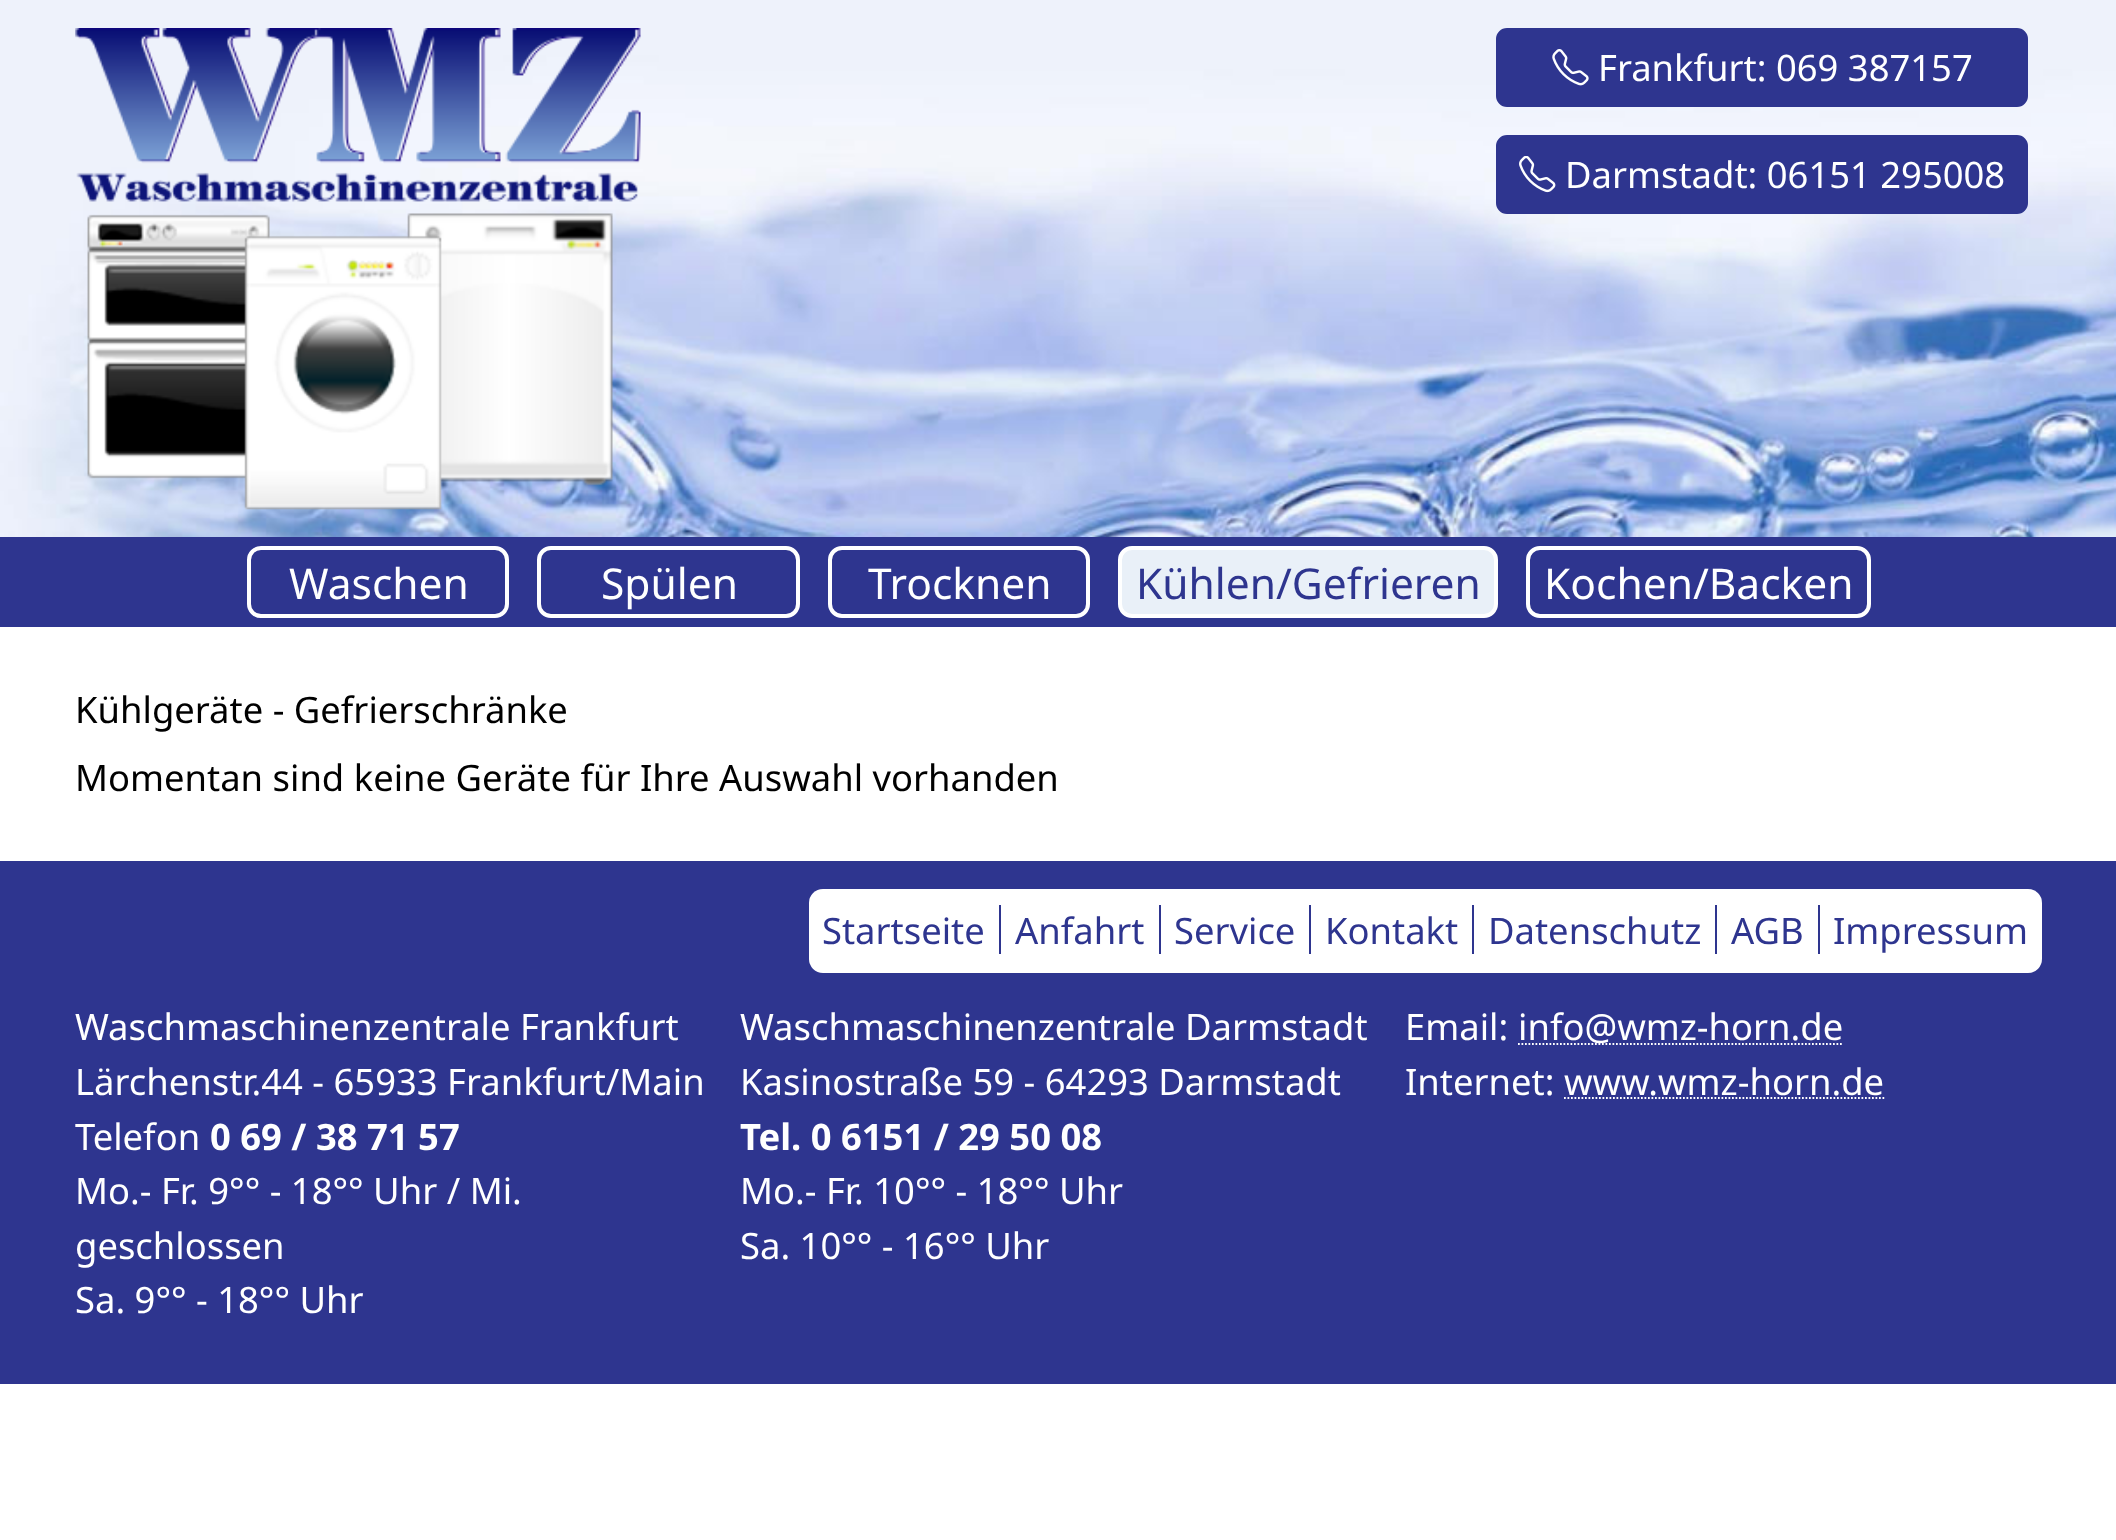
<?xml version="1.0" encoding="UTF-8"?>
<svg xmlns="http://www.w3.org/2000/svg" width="2116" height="1540">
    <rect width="100%" height="100%" fill="#FFFFFF"/>
    <image x="0" y="0" width="2116" height="537" href="img_01.png"/>
    <image x="75" y="28" width="567" height="482" href="img_02.png"/>
    <rect x="1497" y="29" width="530" height="77" rx="10" fill="#2E358F" stroke="#2E358F" stroke-width="2"/>
    <image x="1552" y="49" width="37" height="37" href="img_03.png"/>
    <text x="1598" y="81" font-family="Noto Sans" font-size="36.4" fill="#FFFFFF">Frankfurt: 069 387157</text>
    <rect x="1497" y="136" width="530" height="77" rx="10" fill="#2E358F" stroke="#2E358F" stroke-width="2"/>
    <image x="1519" y="156" width="37" height="37" href="img_04.png"/>
    <text x="1565" y="188" font-family="Noto Sans" font-size="36.4" fill="#FFFFFF">Darmstadt: 06151 295008</text>
    <rect x="0" y="537" width="2116" height="90" fill="#2E358F"/>
    <rect x="249" y="548" width="258" height="68" rx="12" fill="none" stroke="#FFFFFF" stroke-width="4"/>
    <text x="289" y="599" font-family="Noto Sans" font-size="42.5" fill="#FFFFFF">Waschen</text>
    <rect x="539" y="548" width="259" height="68" rx="12" fill="none" stroke="#FFFFFF" stroke-width="4"/>
    <text x="601" y="599" font-family="Noto Sans" font-size="42.5" fill="#FFFFFF">Spülen</text>
    <rect x="830" y="548" width="258" height="68" rx="12" fill="none" stroke="#FFFFFF" stroke-width="4"/>
    <text x="868" y="599" font-family="Noto Sans" font-size="42.5" fill="#FFFFFF">Trocknen</text>
    <rect x="1120" y="548" width="376" height="68" rx="12" fill="#E9F0F8" stroke="#FFFFFF" stroke-width="4"/>
    <text x="1136" y="599" font-family="Noto Sans" font-size="42.5" fill="#2E358F">Kühlen/Gefrieren</text>
    <rect x="1528" y="548" width="341" height="68" rx="12" fill="none" stroke="#FFFFFF" stroke-width="4"/>
    <text x="1544" y="599" font-family="Noto Sans" font-size="42.5" fill="#FFFFFF">Kochen/Backen</text>
    <text font-family="Noto Sans" font-size="36.4" fill="#000000">
        <tspan x="75" y="723">Kühlgeräte - Gefrierschränke</tspan>
        <tspan x="75" y="791">Momentan sind keine Geräte für Ihre Auswahl vorhanden</tspan>
    </text>
    <rect x="0" y="861" width="2116" height="523" fill="#2E358F"/>
    <rect x="809" y="889" width="1233" height="84" rx="14" fill="#FFFFFF"/>
    <text x="822" y="944" font-family="Noto Sans" font-size="36.4" fill="#2E358F">Startseite</text>
    <text x="1015" y="944" font-family="Noto Sans" font-size="36.4" fill="#2E358F">Anfahrt</text>
    <rect x="999" y="905" width="2" height="49" fill="#2E358F"/>
    <text x="1174" y="944" font-family="Noto Sans" font-size="36.4" fill="#2E358F">Service</text>
    <rect x="1159" y="905" width="2" height="49" fill="#2E358F"/>
    <text x="1325" y="944" font-family="Noto Sans" font-size="36.4" fill="#2E358F">Kontakt</text>
    <rect x="1309" y="905" width="2" height="49" fill="#2E358F"/>
    <text x="1488" y="944" font-family="Noto Sans" font-size="36.4" fill="#2E358F">Datenschutz</text>
    <rect x="1472" y="905" width="2" height="49" fill="#2E358F"/>
    <text x="1731" y="944" font-family="Noto Sans" font-size="36.4" fill="#2E358F">AGB</text>
    <rect x="1715" y="905" width="2" height="49" fill="#2E358F"/>
    <text x="1833" y="944" font-family="Noto Sans" font-size="36.4" fill="#2E358F">Impressum</text>
    <rect x="1818" y="905" width="2" height="49" fill="#2E358F"/>
    <text font-family="Noto Sans" font-size="36.4" fill="#FFFFFF">
        <tspan x="75" y="1040">Waschmaschinenzentrale Frankfurt</tspan>
        <tspan x="75" y="1095">Lärchenstr.44 - 65933 Frankfurt/Main</tspan>
        <tspan x="75" y="1150">Telefon</tspan>
    </text>
    <text x="210" y="1150" font-family="Noto Sans" font-size="36.4" font-weight="700" fill="#FFFFFF">0 69 / 38 71 57</text>
    <text font-family="Noto Sans" font-size="36.4" fill="#FFFFFF">
        <tspan x="75" y="1204">Mo.- Fr. 9°° - 18°° Uhr / Mi.</tspan>
        <tspan x="75" y="1259">geschlossen</tspan>
        <tspan x="75" y="1313">Sa. 9°° - 18°° Uhr</tspan>
    </text>
    <text font-family="Noto Sans" font-size="36.4" fill="#FFFFFF">
        <tspan x="740" y="1040">Waschmaschinenzentrale Darmstadt</tspan>
        <tspan x="740" y="1095">Kasinostraße 59 - 64293 Darmstadt</tspan>
    </text>
    <text x="740" y="1150" font-family="Noto Sans" font-size="36.4" font-weight="700" fill="#FFFFFF">Tel. 0 6151 / 29 50 08</text>
    <text font-family="Noto Sans" font-size="36.4" fill="#FFFFFF">
        <tspan x="740" y="1204">Mo.- Fr. 10°° - 18°° Uhr</tspan>
        <tspan x="740" y="1259">Sa. 10°° - 16°° Uhr</tspan>
    </text>
    <text x="1405" y="1040" font-family="Noto Sans" font-size="36.4" fill="#FFFFFF">Email:</text>
    <path d="M 1518 1044 H 1843" fill="none" stroke="#FFFFFF" stroke-width="1.8" stroke-dasharray="1.75 1.75"/>
    <text x="1518" y="1040" font-family="Noto Sans" font-size="36.4" fill="#FFFFFF">info@wmz-horn.de</text>
    <text x="1405" y="1095" font-family="Noto Sans" font-size="36.4" fill="#FFFFFF">Internet: www.wmz-horn.de</text>
    <path d="M 1564 1098 H 1884.5" fill="none" stroke="#FFFFFF" stroke-width="1.8" stroke-dasharray="1.75 1.75"/>
</svg>
